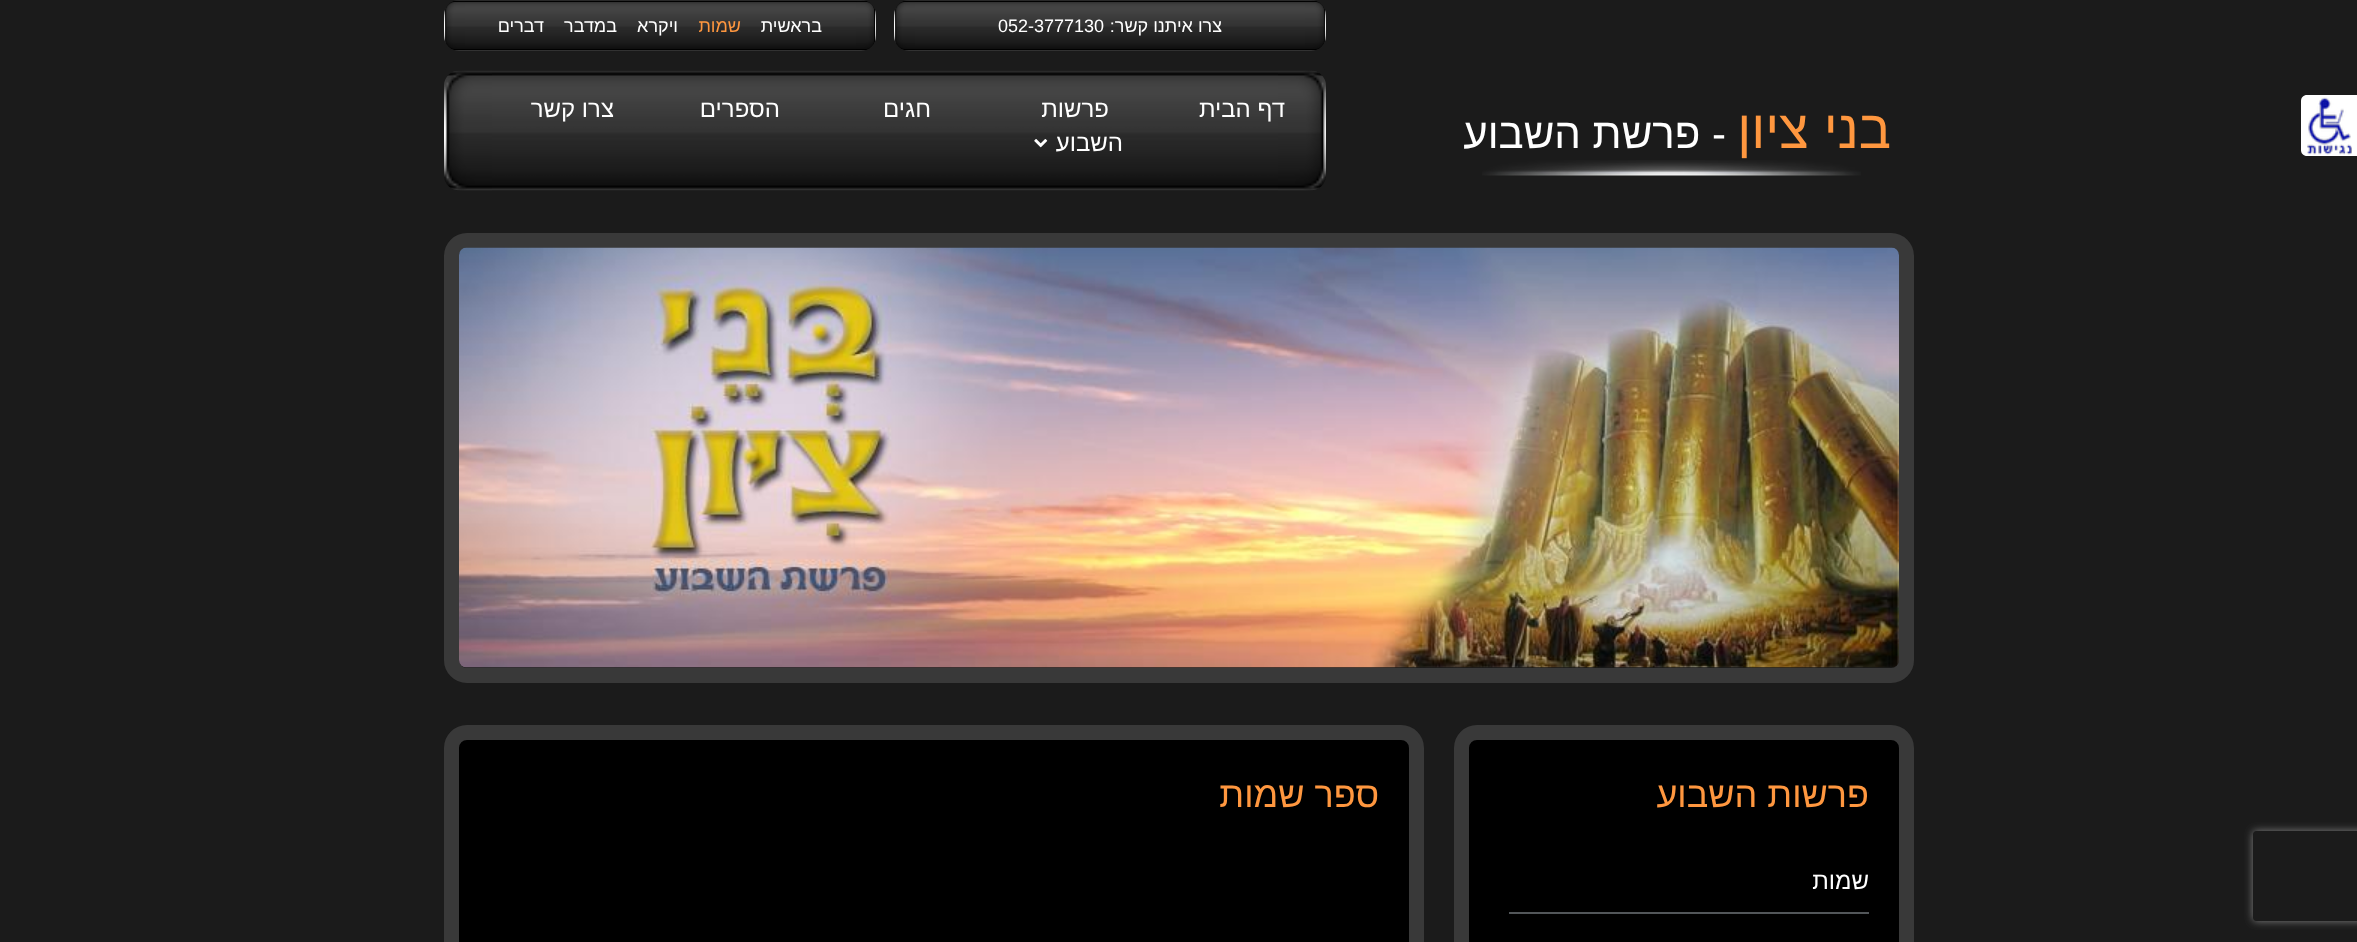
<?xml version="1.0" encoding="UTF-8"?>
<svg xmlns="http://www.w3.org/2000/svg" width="2357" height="942">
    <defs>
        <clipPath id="clip1"><path d="M 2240 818 H 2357 V 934 H 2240 Z M 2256 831 H 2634 C 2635.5 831 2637 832.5 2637 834 V 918 C 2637 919.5 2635.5 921 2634 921 H 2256 C 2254.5 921 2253 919.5 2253 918 V 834 C 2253 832.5 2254.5 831 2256 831 Z" clip-rule="evenodd"/></clipPath>
        <filter id="blur1" x="-50%" y="-200%" width="200%" height="500%"><feGaussianBlur stdDeviation="4"/></filter>
    </defs>
    <rect width="100%" height="100%" fill="#1B1B1B"/>
    <path d="M 2307 95 H 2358 V 156 H 2307 C 2303.5 156 2301 153.5 2301 150 V 101 C 2301 97.5 2303.5 95 2307 95 Z" fill="#FFFFFF"/>
    <image x="2307" y="97" width="45" height="58" href="img_01.png"/>
    <image x="894" y="0" width="432" height="51" href="img_02.png"/>
    <text x="1222" y="32" font-family="Liberation Sans" font-size="18" direction="rtl" fill="#FFFFFF">צרו איתנו קשר:</text>
    <text x="998" y="32" font-family="Liberation Sans" font-size="18" fill="#FFFFFF">052-3777130</text>
    <image x="444" y="0" width="432" height="51" href="img_03.png"/>
    <text x="822" y="32" font-family="Liberation Sans" font-size="18" direction="rtl" fill="#FFFFFF">בראשית</text>
    <text x="741" y="32" font-family="Liberation Sans" font-size="18" direction="rtl" fill="#FF973F">שמות</text>
    <text x="678" y="32" font-family="Liberation Sans" font-size="18" direction="rtl" fill="#FFFFFF">ויקרא</text>
    <text x="617" y="32" font-family="Liberation Sans" font-size="18" direction="rtl" fill="#FFFFFF">במדבר</text>
    <text x="544" y="32" font-family="Liberation Sans" font-size="18" direction="rtl" fill="#FFFFFF">דברים</text>
    <text x="1891" y="148" font-family="Liberation Sans" font-size="54" direction="rtl" fill="#FF973F">בני ציון</text>
    <text x="1726" y="148" font-family="Liberation Sans" font-size="42" direction="rtl" fill="#FFFFFF">- פרשת השבוע</text>
    <image x="1482" y="160" width="379" height="16" href="img_04.png"/>
    <image x="444" y="70" width="882" height="121" href="img_05.png"/>
    <text x="1285" y="117" font-family="Liberation Sans" font-size="24" direction="rtl" fill="#FFFFFF">דף הבית</text>
    <text x="1109" y="117" font-family="Liberation Sans" font-size="24" direction="rtl" fill="#FFFFFF">פרשות</text>
    <text x="1123" y="151" font-family="Liberation Sans" font-size="24" direction="rtl" fill="#FFFFFF">השבוע</text>
    <image x="1034" y="139" width="14" height="9" href="img_06.png"/>
    <text x="931" y="117" font-family="Liberation Sans" font-size="24" direction="rtl" fill="#FFFFFF">חגים</text>
    <text x="780" y="117" font-family="Liberation Sans" font-size="24" direction="rtl" fill="#FFFFFF">הספרים</text>
    <text x="614" y="117" font-family="Liberation Sans" font-size="24" direction="rtl" fill="#FFFFFF">צרו קשר</text>
    <rect x="451.5" y="240.5" width="1455" height="435" rx="15.5" fill="none" stroke="#393939" stroke-width="15"/>
    <image x="459" y="247" width="1440" height="421" href="img_07.png"/>
    <rect x="1461.5" y="732.5" width="445" height="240" rx="15.5" fill="#000000" stroke="#393939" stroke-width="15"/>
    <text x="1869" y="807" font-family="Liberation Sans" font-size="36" direction="rtl" fill="#FF973F">פרשות השבוע</text>
    <text x="1869" y="889" font-family="Liberation Sans" font-size="24" direction="rtl" fill="#FFFFFF">שמות</text>
    <rect x="1509" y="912" width="360" height="2" fill="#525659"/>
    <rect x="451.5" y="732.5" width="965" height="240" rx="15.5" fill="#000000" stroke="#393939" stroke-width="15"/>
    <text x="1379" y="807" font-family="Liberation Sans" font-size="36" direction="rtl" fill="#FF973F">ספר שמות</text>
    <g clip-path="url(#clip1)">
        <rect x="2253" y="831" width="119" height="90" rx="3" fill="#808080" filter="url(#blur1)"/>
    </g>
</svg>
